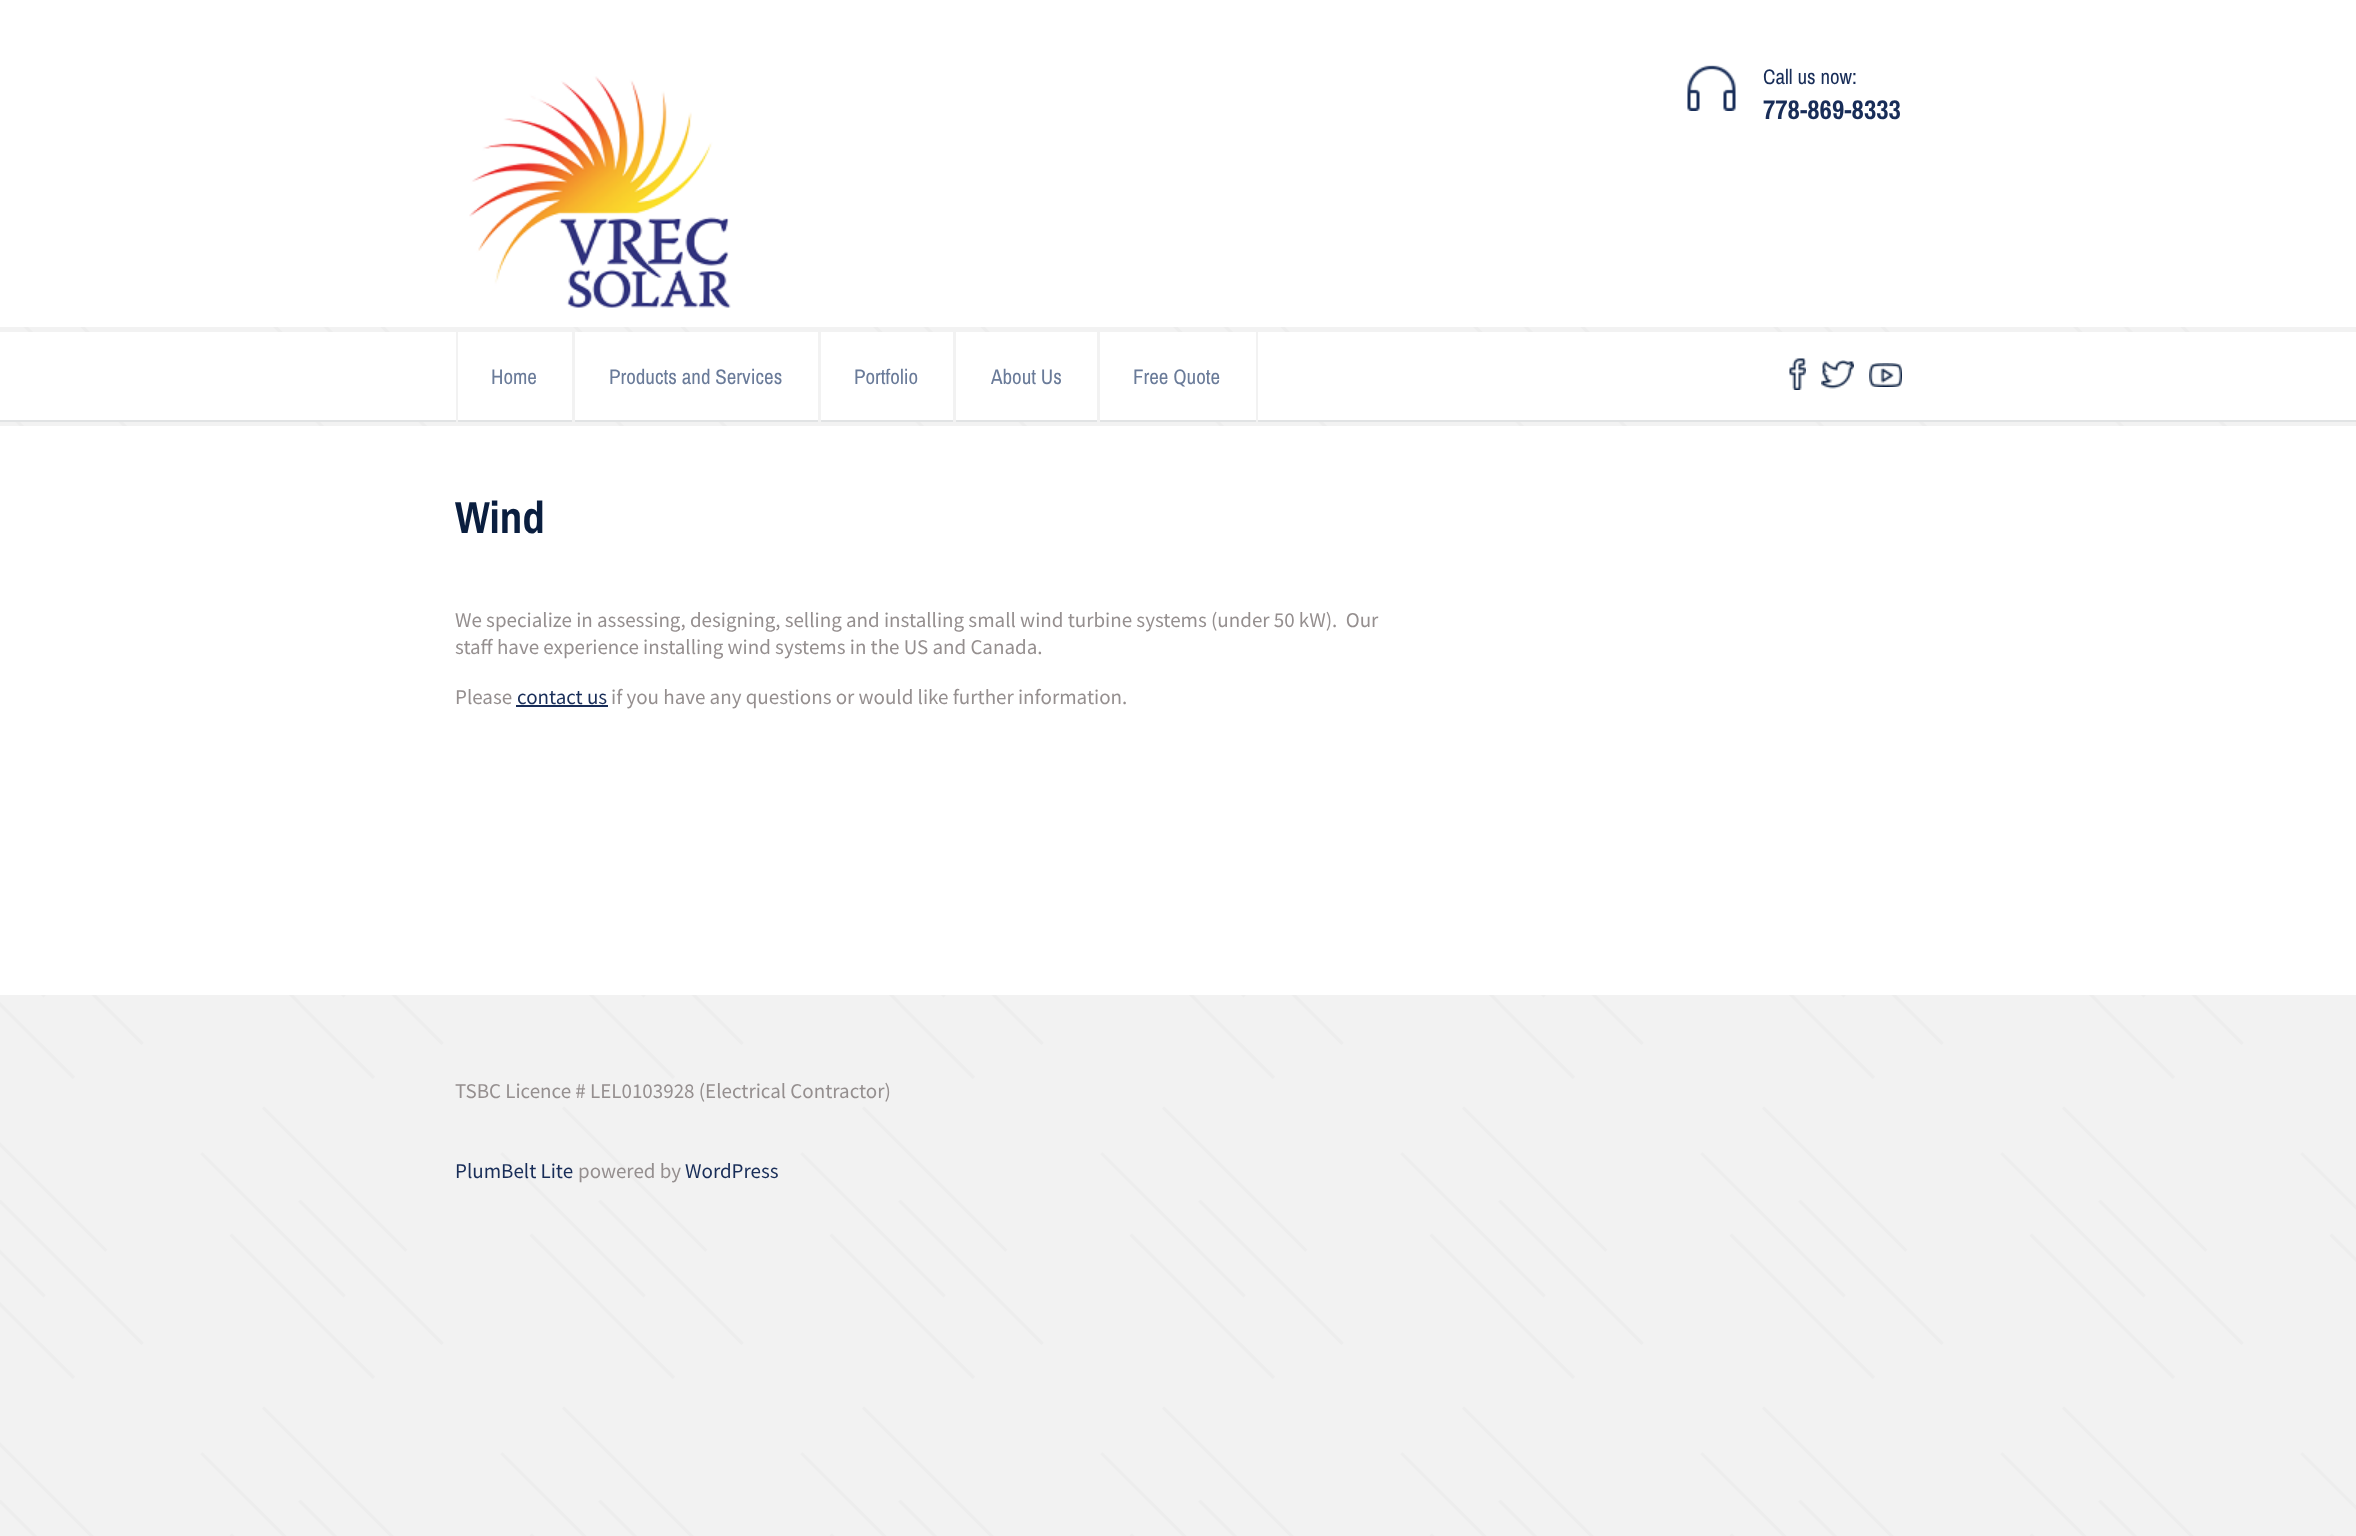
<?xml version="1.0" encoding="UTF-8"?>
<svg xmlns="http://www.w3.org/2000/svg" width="2356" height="1536">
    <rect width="100%" height="100%" fill="#FFFFFF"/>
    <image x="0" y="327" width="2356" height="1209" href="img_01.png"/>
    <image x="469" y="76" width="262" height="232" href="img_02.png"/>
    <image x="1687" y="65" width="49" height="46" href="img_03.png"/>
    <text x="1763" y="84" font-family="Archivo Narrow" font-size="21" fill="#182D58">Call us now:</text>
    <text x="1763" y="119" font-family="Archivo Narrow" font-size="27" font-weight="700" fill="#182D58">778-869-8333</text>
    <rect x="0" y="332" width="2356" height="88" fill="#FFFFFF"/>
    <rect x="0" y="420" width="2356" height="2" fill="#E1E3E4"/>
    <rect x="572" y="332" width="3" height="90" fill="#F2F2F2"/>
    <rect x="456" y="332" width="2" height="90" fill="#F2F2F2"/>
    <text x="491" y="384" font-family="Archivo Narrow" font-size="21" fill="#6A7B99">Home</text>
    <rect x="818" y="332" width="3" height="90" fill="#F2F2F2"/>
    <text x="609" y="384" font-family="Archivo Narrow" font-size="21" fill="#6A7B99">Products and Services</text>
    <rect x="953" y="332" width="3" height="90" fill="#F2F2F2"/>
    <text x="854" y="384" font-family="Archivo Narrow" font-size="21" fill="#6A7B99">Portfolio</text>
    <rect x="1097" y="332" width="3" height="90" fill="#F2F2F2"/>
    <text x="991" y="384" font-family="Archivo Narrow" font-size="21" fill="#6A7B99">About Us</text>
    <rect x="1256" y="332" width="2" height="90" fill="#F2F2F2"/>
    <text x="1133" y="384" font-family="Archivo Narrow" font-size="21" fill="#6A7B99">Free Quote</text>
    <image x="1789" y="358" width="17" height="32" href="img_04.png"/>
    <image x="1821" y="360" width="33" height="29" href="img_05.png"/>
    <image x="1869" y="363" width="33" height="24" href="img_06.png"/>
    <rect x="0" y="426" width="2356" height="569" fill="#FFFFFF"/>
    <text x="455" y="533" font-family="Archivo Narrow" font-size="45" font-weight="700" fill="#0A1E3F">Wind</text>
    <text font-family="Source Sans Pro" font-size="21" fill="#958F8F" xml:space="preserve"><tspan x="455" y="627">We specialize in assessing, designing, selling and installing small wind turbine systems (under 50 kW).  Our</tspan><tspan x="455" y="654">staff have experience installing wind systems in the US and Canada.</tspan></text>
    <text x="455" y="704" font-family="Source Sans Pro" font-size="21" fill="#958F8F">Please</text>
    <text x="517" y="704" font-family="Source Sans Pro" font-size="21" fill="#182D58">contact us</text>
    <rect x="516" y="705" width="92" height="2" fill="#182D58"/>
    <text x="611" y="704" font-family="Source Sans Pro" font-size="21" fill="#958F8F">if you have any questions or would like further information.</text>
    <text x="455" y="1098" font-family="Source Sans Pro" font-size="21" fill="#958F8F">TSBC Licence # LEL0103928 (Electrical Contractor)</text>
    <text x="455" y="1178" font-family="Source Sans Pro" font-size="21" fill="#182D58">PlumBelt Lite</text>
    <text x="578" y="1178" font-family="Source Sans Pro" font-size="21" fill="#958F8F">powered by</text>
    <text x="685" y="1178" font-family="Source Sans Pro" font-size="21" fill="#182D58">WordPress</text>
</svg>
